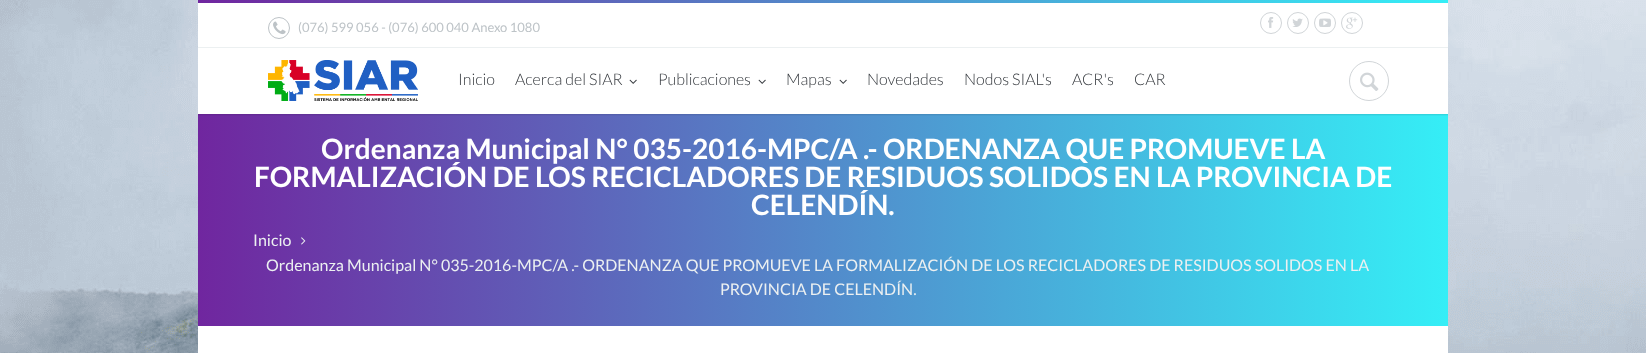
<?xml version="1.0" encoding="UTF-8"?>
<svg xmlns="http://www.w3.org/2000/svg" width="1646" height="353">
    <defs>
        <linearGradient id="g1" gradientUnits="userSpaceOnUse" x1="198" y1="1.5" x2="1448" y2="1.5"><stop offset="0" stop-color="#70269F"/><stop offset="1" stop-color="#35EEF6"/></linearGradient>
        <linearGradient id="g2" gradientUnits="userSpaceOnUse" x1="198" y1="220" x2="1448" y2="220"><stop offset="0" stop-color="#70269F"/><stop offset="1" stop-color="#35EEF6"/></linearGradient>
    </defs>
    <rect width="100%" height="100%" fill="#FFFFFF"/>
    <image x="0" y="0" width="1646" height="353" href="img_01.png"/>
    <rect x="198" y="3" width="1250" height="350" fill="#FFFFFF"/>
    <rect x="198" y="0" width="1250" height="3" fill="url(#g1)"/>
    <circle cx="279" cy="28" r="10.5" fill="none" stroke="#BDC3C7"/>
    <image x="273" y="21" width="13" height="14" href="img_02.png"/>
    <text x="298" y="32" font-family="Lato" font-size="13" fill="#BDC3C7">(076) 599 056 - (076) 600 040 Anexo 1080</text>
    <circle cx="1271" cy="23" r="10.5" fill="none" stroke="#D1D5D8"/>
    <image x="1268" y="17" width="6" height="11" href="img_03.png"/>
    <circle cx="1298" cy="23" r="10.5" fill="none" stroke="#D1D5D8"/>
    <image x="1292" y="18" width="11" height="9" href="img_04.png"/>
    <circle cx="1325" cy="23" r="10.5" fill="none" stroke="#D1D5D8"/>
    <image x="1319" y="18" width="12" height="9" href="img_05.png"/>
    <circle cx="1352" cy="23" r="10.5" fill="none" stroke="#D1D5D8"/>
    <image x="1346" y="17" width="12" height="12" href="img_06.png"/>
    <rect x="198" y="47" width="1250" height="1" fill="#ECF0F1"/>
    <image x="268" y="60" width="150" height="41" href="img_07.png"/>
    <text x="458" y="85" font-family="Lato" font-size="16" font-weight="300" fill="#34383D">Inicio</text>
    <text x="515" y="85" font-family="Lato" font-size="16" font-weight="300" fill="#34383D">Acerca del SIAR</text>
    <image x="629" y="79" width="8" height="5" href="img_08.png"/>
    <text x="658" y="85" font-family="Lato" font-size="16" font-weight="300" fill="#34383D">Publicaciones</text>
    <image x="758" y="79" width="8" height="5" href="img_08.png"/>
    <text x="786" y="85" font-family="Lato" font-size="16" font-weight="300" fill="#34383D">Mapas</text>
    <image x="839" y="79" width="8" height="5" href="img_08.png"/>
    <text x="867" y="85" font-family="Lato" font-size="16" font-weight="300" fill="#34383D">Novedades</text>
    <text x="964" y="85" font-family="Lato" font-size="16" font-weight="300" fill="#34383D">Nodos SIAL's</text>
    <text x="1072" y="85" font-family="Lato" font-size="16" font-weight="300" fill="#34383D">ACR's</text>
    <text x="1134" y="85" font-family="Lato" font-size="16" font-weight="300" fill="#34383D">CAR</text>
    <circle cx="1369" cy="81" r="19.5" fill="none" stroke="#D1D5D8"/>
    <image x="1360" y="72" width="19" height="19" href="img_09.png"/>
    <rect x="198" y="114" width="1250" height="212" fill="url(#g2)"/>
    <image x="198" y="114" width="1250" height="2" href="img_10.png"/>
    <text x="321" y="159" font-family="Lato" font-size="28" font-weight="700" fill="#FFFFFF">Ordenanza Municipal N° 035-2016-MPC/A .- ORDENANZA QUE PROMUEVE LA</text>
    <text x="254" y="187" font-family="Lato" font-size="28" font-weight="700" fill="#FFFFFF">FORMALIZACIÓN DE LOS RECICLADORES DE RESIDUOS SOLIDOS EN LA PROVINCIA DE</text>
    <text x="751" y="215" font-family="Lato" font-size="28" font-weight="700" fill="#FFFFFF">CELENDÍN.</text>
    <text x="253" y="246" font-family="Lato" font-size="16" fill="#ECF0F1">Inicio</text>
    <image x="301" y="237" width="5" height="8" href="img_11.png"/>
    <text x="266" y="271" font-family="Lato" font-size="16" fill="#ECF0F1">Ordenanza Municipal N° 035-2016-MPC/A .- ORDENANZA QUE PROMUEVE LA FORMALIZACIÓN DE LOS RECICLADORES DE RESIDUOS SOLIDOS EN LA</text>
    <text x="720" y="295" font-family="Lato" font-size="16" fill="#ECF0F1">PROVINCIA DE CELENDÍN.</text>
</svg>
